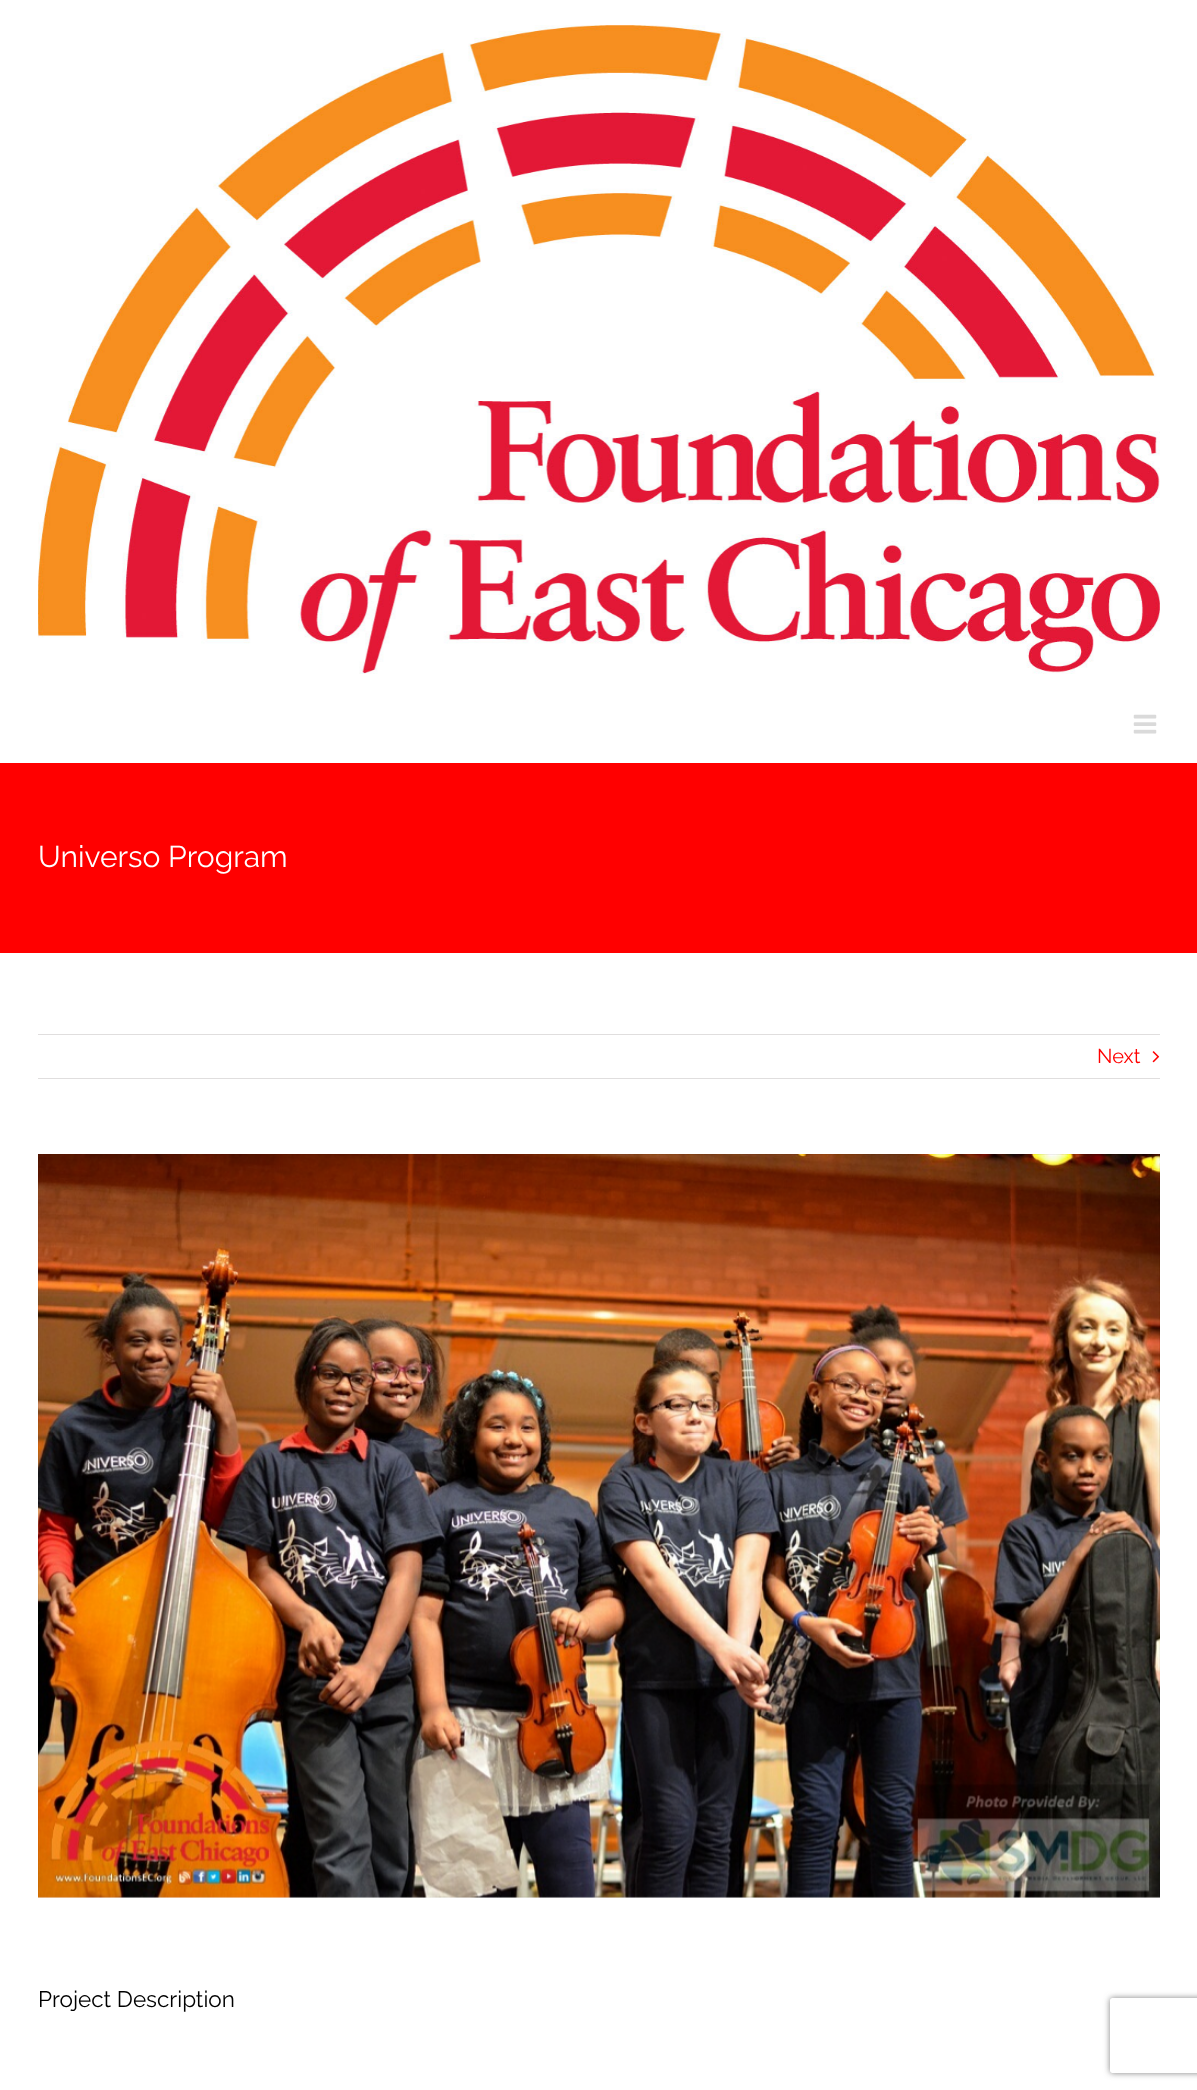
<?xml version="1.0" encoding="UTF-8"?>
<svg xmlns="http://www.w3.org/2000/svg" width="1197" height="2090">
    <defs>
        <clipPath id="clip1"><path d="M 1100 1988 H 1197 V 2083 H 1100 Z M 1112.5 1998 H 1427.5 C 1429 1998 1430 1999 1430 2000.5 V 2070.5 C 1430 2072 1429 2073 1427.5 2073 H 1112.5 C 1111 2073 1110 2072 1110 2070.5 V 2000.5 C 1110 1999 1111 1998 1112.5 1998 Z" clip-rule="evenodd"/></clipPath>
        <filter id="blur1" x="-50%" y="-200%" width="200%" height="500%"><feGaussianBlur stdDeviation="3"/></filter>
    </defs>
    <rect width="100%" height="100%" fill="#FFFFFF"/>
    <image x="38" y="25" width="1122" height="649" href="img_01.png"/>
    <image x="1133" y="714" width="24" height="20" href="img_02.png"/>
    <rect x="0" y="763" width="1197" height="190" fill="#FF0000"/>
    <text x="38" y="867" font-family="Raleway" font-size="30" fill="#FFFFFF">Universo Program</text>
    <rect x="38" y="1034" width="1122" height="1" fill="#E0DEDE"/>
    <rect x="38" y="1078" width="1122" height="1" fill="#E0DEDE"/>
    <text x="1097" y="1063" font-family="Raleway" font-size="20" fill="#FF0000">Next</text>
    <image x="1152" y="1051" width="8" height="12" href="img_03.png"/>
    <image x="38" y="1154" width="1122" height="744" href="img_04.png"/>
    <text x="38" y="2007" font-family="Raleway" font-size="22.5" fill="#000000">Project Description</text>
    <g clip-path="url(#clip1)">
        <rect x="1110" y="1998" width="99" height="75" rx="2.5" fill="#808080" filter="url(#blur1)"/>
    </g>
</svg>
